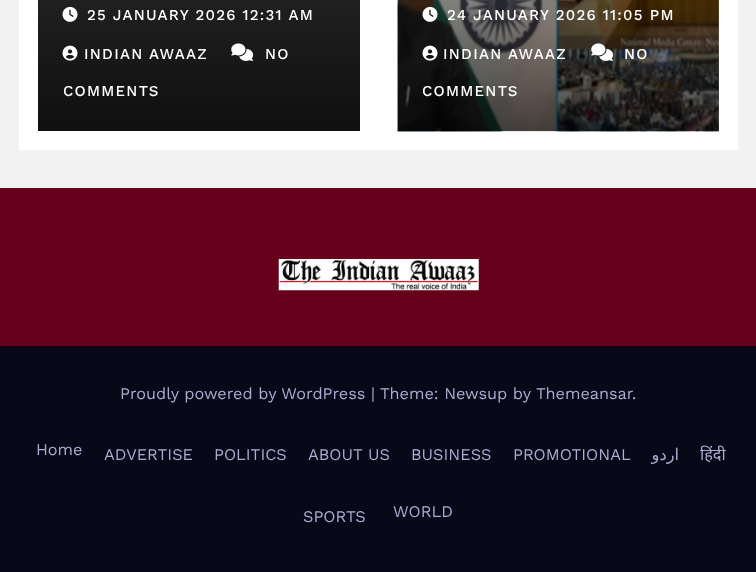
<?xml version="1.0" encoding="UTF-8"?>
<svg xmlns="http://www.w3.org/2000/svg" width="756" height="572">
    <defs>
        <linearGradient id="g1" gradientUnits="userSpaceOnUse" x1="199" y1="-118" x2="199" y2="131"><stop offset="0" stop-color="#333333"/><stop offset="0.5" stop-color="#1F1F1F"/><stop offset="1" stop-color="#0F0F0F"/></linearGradient>
        <linearGradient id="g2" gradientUnits="userSpaceOnUse" x1="558" y1="-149" x2="558" y2="131"><stop offset="0" stop-color="#000000" stop-opacity="0"/><stop offset="0.5" stop-color="#000000" stop-opacity="0.4"/><stop offset="1" stop-color="#000000" stop-opacity="0.7"/></linearGradient>
    </defs>
    <rect width="100%" height="100%" fill="#F2F2F2"/>
    <rect x="19" y="0" width="719" height="150" fill="#FFFFFF"/>
    <rect x="38" y="0" width="322" height="131" fill="url(#g1)"/>
    <image x="62" y="6" width="16" height="16" href="img_01.png"/>
    <text x="87" y="20" font-family="Work Sans" font-size="15" font-weight="500" letter-spacing="1.25" fill="#FFFFFF">25 JANUARY 2026 12:31 AM</text>
    <image x="231" y="43" width="23" height="18" href="img_02.png"/>
    <text x="265" y="59" font-family="Work Sans" font-size="15" font-weight="500" letter-spacing="1.25" fill="#FFFFFF">NO</text>
    <text x="63" y="96" font-family="Work Sans" font-size="15" font-weight="500" letter-spacing="1.25" fill="#FFFFFF">COMMENTS</text>
    <image x="62" y="45" width="16" height="16" href="img_03.png"/>
    <text x="84" y="59" font-family="Work Sans" font-size="15" font-weight="500" letter-spacing="1.25" fill="#FFFFFF">INDIAN AWAAZ</text>
    <image x="397" y="0" width="322" height="132" href="img_04.png"/>
    <rect x="398" y="0" width="321" height="131" fill="url(#g2)"/>
    <image x="422" y="6" width="16" height="16" href="img_05.png"/>
    <text x="447" y="20" font-family="Work Sans" font-size="15" font-weight="500" letter-spacing="1.25" fill="#FFFFFF">24 JANUARY 2026 11:05 PM</text>
    <image x="591" y="43" width="23" height="18" href="img_06.png"/>
    <text x="624" y="59" font-family="Work Sans" font-size="15" font-weight="500" letter-spacing="1.25" fill="#FFFFFF">NO</text>
    <text x="422" y="96" font-family="Work Sans" font-size="15" font-weight="500" letter-spacing="1.25" fill="#FFFFFF">COMMENTS</text>
    <image x="422" y="45" width="16" height="16" href="img_07.png"/>
    <text x="443" y="59" font-family="Work Sans" font-size="15" font-weight="500" letter-spacing="1.25" fill="#FFFFFF">INDIAN AWAAZ</text>
    <rect x="0" y="188" width="756" height="158" fill="#66001B"/>
    <image x="278" y="259" width="201" height="32" href="img_08.png"/>
    <rect x="0" y="346" width="756" height="226" fill="#090818"/>
    <text x="120" y="399" font-family="Work Sans" font-size="16.25" fill="#AAAED1">Proudly powered by WordPress |</text>
    <text x="380" y="399" font-family="Work Sans" font-size="16.25" fill="#AAAED1">Theme: Newsup by</text>
    <text x="536" y="399" font-family="Work Sans" font-size="16.25" fill="#AAAED1">Themeansar</text>
    <text x="632" y="399" font-family="Work Sans" font-size="16.25" fill="#AAAED1">.</text>
    <text x="36" y="455" font-family="Work Sans" font-size="16.25" fill="#AAAED1">Home</text>
    <text x="104" y="460" font-family="Work Sans" font-size="16.25" fill="#AAAED1">ADVERTISE</text>
    <text x="214" y="460" font-family="Work Sans" font-size="16.25" fill="#AAAED1">POLITICS</text>
    <text x="308" y="460" font-family="Work Sans" font-size="16.25" fill="#AAAED1">ABOUT US</text>
    <text x="411" y="460" font-family="Work Sans" font-size="16.25" fill="#AAAED1">BUSINESS</text>
    <text x="513" y="460" font-family="Work Sans" font-size="16.25" fill="#AAAED1">PROMOTIONAL</text>
    <text x="679" y="460" font-family="DejaVu Sans" font-size="16.25" direction="rtl" fill="#AAAED1">اردو</text>
    <text x="700" y="460" font-family="Noto Sans" font-size="16.25" fill="#AAAED1">हिंदी</text>
    <text x="303" y="522" font-family="Work Sans" font-size="16.25" fill="#AAAED1">SPORTS</text>
    <text x="393" y="517" font-family="Work Sans" font-size="16.25" fill="#AAAED1">WORLD</text>
</svg>
